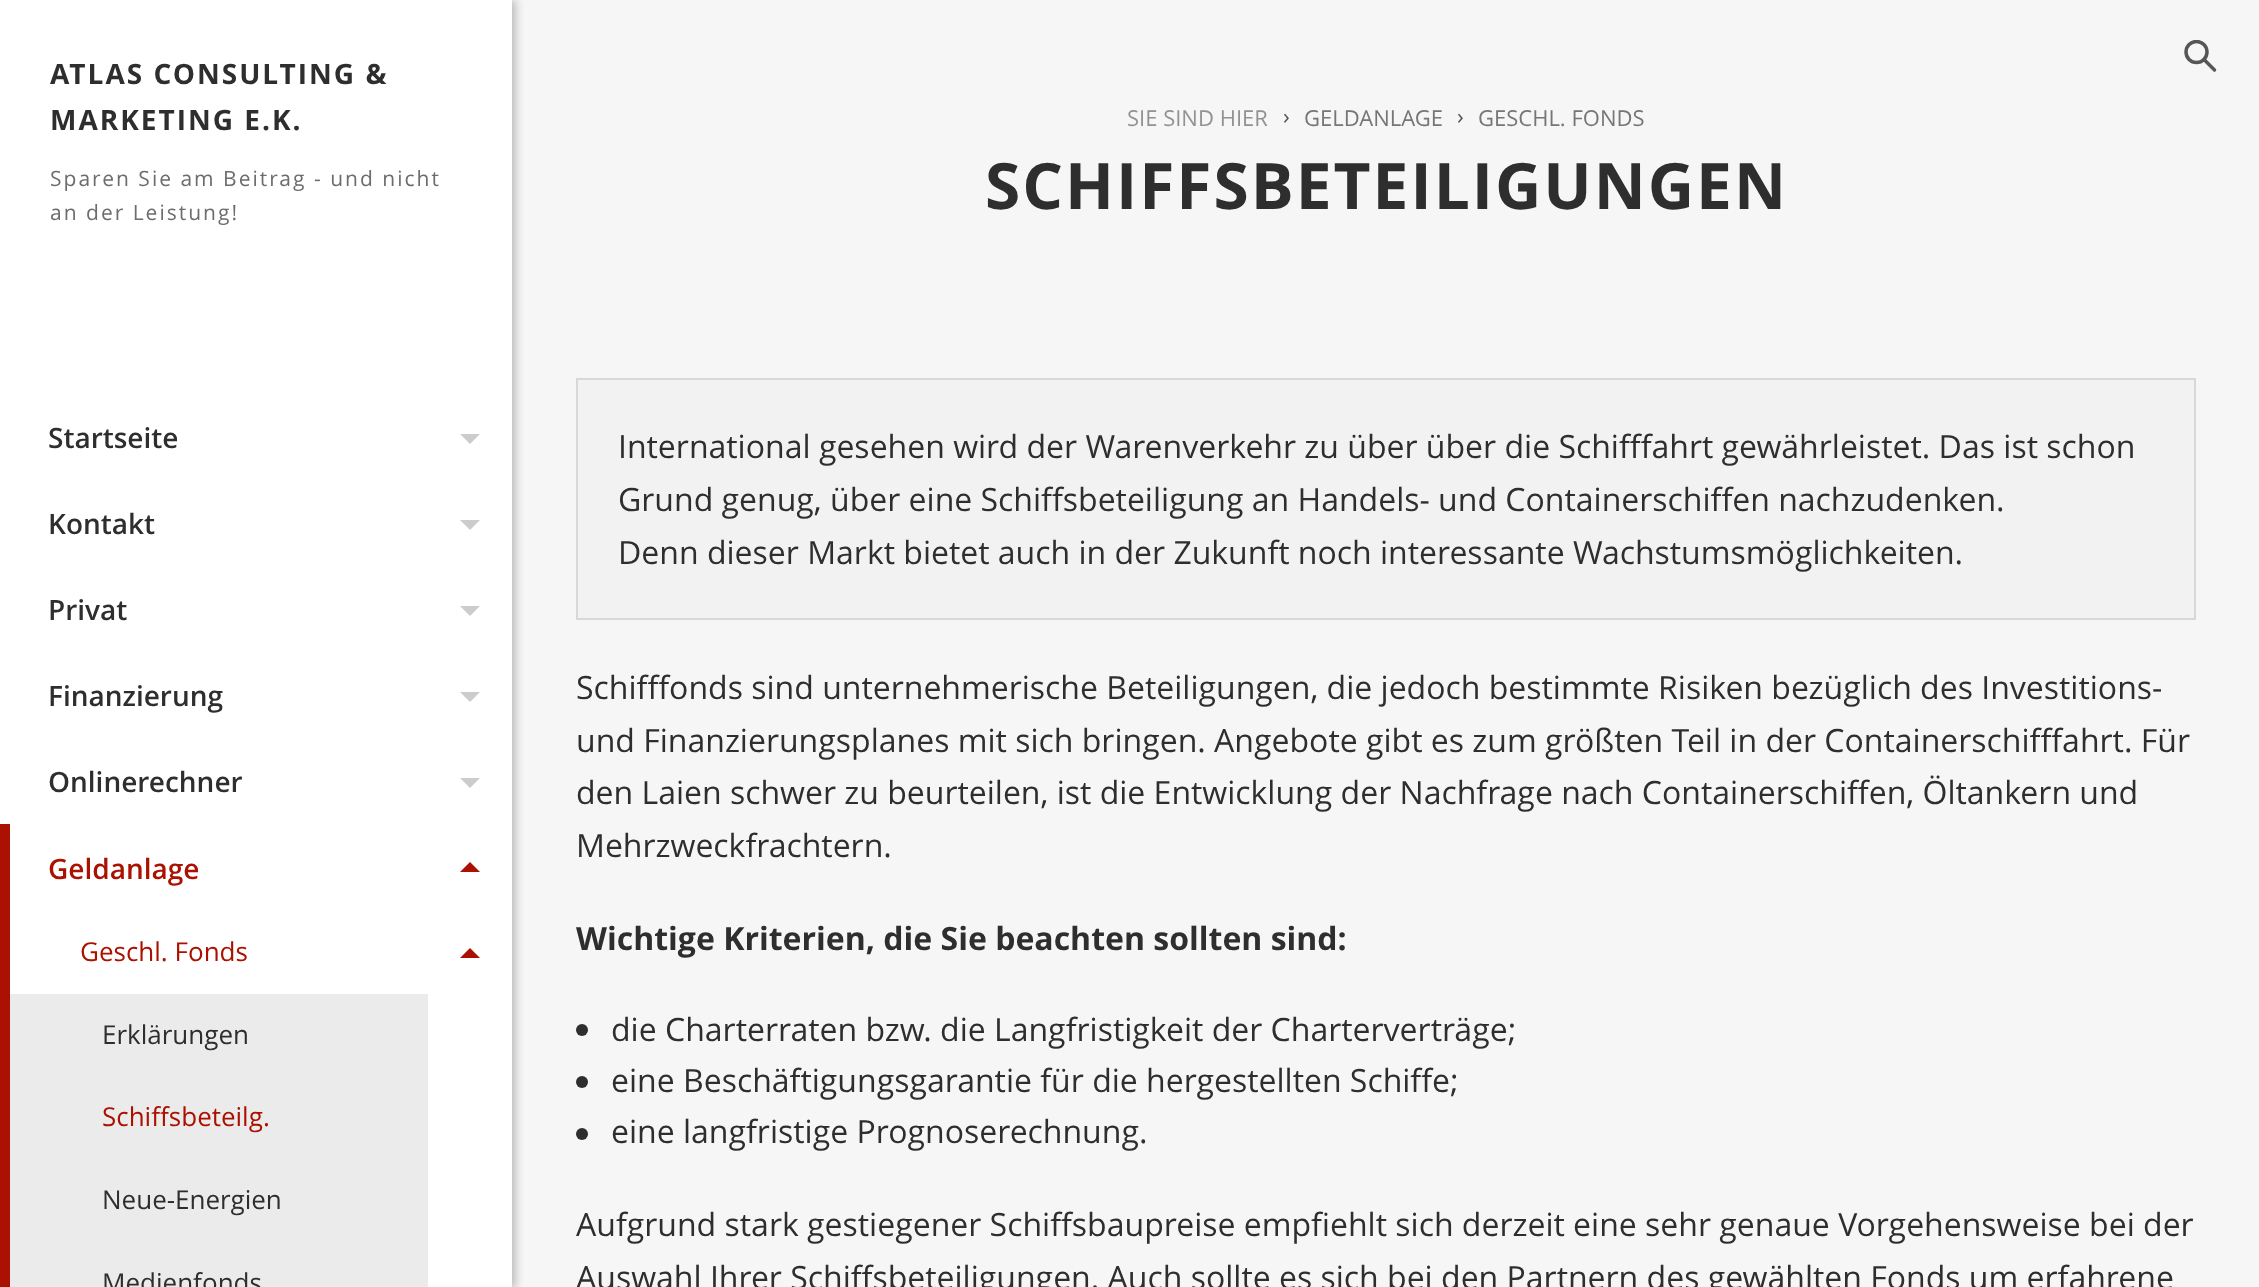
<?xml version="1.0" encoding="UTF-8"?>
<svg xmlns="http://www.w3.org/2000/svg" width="2259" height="1287">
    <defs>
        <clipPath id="clip1"><rect x="2184" y="40" width="32" height="32"/></clipPath>
        <filter id="blur1" x="-50%" y="-200%" width="200%" height="500%"><feGaussianBlur stdDeviation="4"/></filter>
    </defs>
    <rect width="100%" height="100%" fill="#F6F6F6"/>
    <path d="M 2204 59.5 L 2214.5 70" fill="none" stroke="#565656" stroke-width="3.5" stroke-linecap="round"/>
    <g clip-path="url(#clip1)">
        <circle cx="2196.5" cy="52" r="10.5" fill="none" stroke="#565656" stroke-width="3.5"/>
    </g>
    <rect x="4" y="0" width="512" height="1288" fill="#000000" fill-opacity="0.23" filter="url(#blur1)"/>
    <rect x="0" y="0" width="512" height="1287" fill="#FFFFFF"/>
    <text font-family="Open Sans" font-size="28" font-weight="700" letter-spacing="2" fill="#2E2E2E">
        <tspan x="50" y="84">ATLAS CONSULTING &amp;</tspan>
        <tspan x="50" y="130">MARKETING E.K.</tspan>
    </text>
    <text font-family="Open Sans" font-size="21" letter-spacing="2" fill="#6D6D6D">
        <tspan x="50" y="186">Sparen Sie am Beitrag - und nicht</tspan>
        <tspan x="50" y="220">an der Leistung!</tspan>
    </text>
    <text x="48" y="448" font-family="Open Sans" font-size="28" font-weight="600" fill="#2E2E2E">Startseite</text>
    <path d="M 460 434 H 480 L 470 444 Z" fill="#CCCCCC"/>
    <text x="48" y="534" font-family="Open Sans" font-size="28" font-weight="600" fill="#2E2E2E">Kontakt</text>
    <path d="M 460 520 H 480 L 470 530 Z" fill="#CCCCCC"/>
    <text x="48" y="620" font-family="Open Sans" font-size="28" font-weight="600" fill="#2E2E2E">Privat</text>
    <path d="M 460 606 H 480 L 470 616 Z" fill="#CCCCCC"/>
    <text x="48" y="706" font-family="Open Sans" font-size="28" font-weight="600" fill="#2E2E2E">Finanzierung</text>
    <path d="M 460 692 H 480 L 470 702 Z" fill="#CCCCCC"/>
    <text x="48" y="792" font-family="Open Sans" font-size="28" font-weight="600" fill="#2E2E2E">Onlinerechner</text>
    <path d="M 460 778 H 480 L 470 788 Z" fill="#CCCCCC"/>
    <rect x="0" y="824" width="10" height="463" fill="#AA1101"/>
    <text x="48" y="879" font-family="Open Sans" font-size="28" font-weight="600" fill="#AA1101">Geldanlage</text>
    <path d="M 480 872 H 460 L 470 862 Z" fill="#AA1101"/>
    <text x="80" y="961" font-family="Open Sans" font-size="26" fill="#AA1101">Geschl. Fonds</text>
    <path d="M 480 958 H 460 L 470 948 Z" fill="#AA1101"/>
    <rect x="10" y="994" width="418" height="293" fill="#EBEBEB"/>
    <text x="102" y="1044" font-family="Open Sans" font-size="26" fill="#2E2E2E">Erklärungen</text>
    <text x="102" y="1126" font-family="Open Sans" font-size="26" fill="#AA1101">Schiffsbeteilg.</text>
    <text x="102" y="1209" font-family="Open Sans" font-size="26" fill="#2E2E2E">Neue-Energien</text>
    <text x="102" y="1292" font-family="Open Sans" font-size="26" fill="#2E2E2E">Medienfonds</text>
    <text x="1127" y="126" font-family="Open Sans" font-size="22" fill="#929292">SIE SIND HIER</text>
    <text x="1283" y="124" font-family="Open Sans" font-size="22" fill="#565656">›</text>
    <text x="1304" y="126" font-family="Open Sans" font-size="22" fill="#767676">GELDANLAGE</text>
    <text x="1457" y="124" font-family="Open Sans" font-size="22" fill="#565656">›</text>
    <text x="1478" y="126" font-family="Open Sans" font-size="22" fill="#767676">GESCHL. FONDS</text>
    <text x="985" y="209" font-family="Open Sans" font-size="64" font-weight="700" letter-spacing="2" fill="#2E2E2E">SCHIFFSBETEILIGUNGEN</text>
    <rect x="577" y="379" width="1618" height="240" fill="#F2F2F2" stroke="#D8D8D8" stroke-width="2"/>
    <text font-family="Open Sans" font-size="32" fill="#2E2E2E">
        <tspan x="618" y="458">International gesehen wird der Warenverkehr zu über über die Schifffahrt gewährleistet. Das ist schon</tspan>
        <tspan x="618" y="511">Grund genug, über eine Schiffsbeteiligung an Handels- und Containerschiffen nachzudenken.</tspan>
        <tspan x="618" y="564">Denn dieser Markt bietet auch in der Zukunft noch interessante Wachstumsmöglichkeiten.</tspan>
    </text>
    <text font-family="Open Sans" font-size="32" fill="#2E2E2E">
        <tspan x="576" y="699">Schifffonds sind unternehmerische Beteiligungen, die jedoch bestimmte Risiken bezüglich des Investitions-</tspan>
        <tspan x="576" y="752">und Finanzierungsplanes mit sich bringen. Angebote gibt es zum größten Teil in der Containerschifffahrt. Für</tspan>
        <tspan x="576" y="804">den Laien schwer zu beurteilen, ist die Entwicklung der Nachfrage nach Containerschiffen, Öltankern und</tspan>
        <tspan x="576" y="857">Mehrzweckfrachtern.</tspan>
    </text>
    <text x="576" y="950" font-family="Open Sans" font-size="32" font-weight="700" fill="#2E2E2E">Wichtige Kriterien, die Sie beachten sollten sind:</text>
    <circle cx="582" cy="1030" r="6" fill="#2E2E2E"/>
    <text x="611" y="1041" font-family="Open Sans" font-size="32" fill="#2E2E2E">die Charterraten bzw. die Langfristigkeit der Charterverträge;</text>
    <circle cx="582" cy="1082" r="6" fill="#2E2E2E"/>
    <text x="611" y="1092" font-family="Open Sans" font-size="32" fill="#2E2E2E">eine Beschäftigungsgarantie für die hergestellten Schiffe;</text>
    <circle cx="582" cy="1134" r="6" fill="#2E2E2E"/>
    <text x="611" y="1143" font-family="Open Sans" font-size="32" fill="#2E2E2E">eine langfristige Prognoserechnung.</text>
    <text font-family="Open Sans" font-size="32" fill="#2E2E2E">
        <tspan x="576" y="1236">Aufgrund stark gestiegener Schiffsbaupreise empfiehlt sich derzeit eine sehr genaue Vorgehensweise bei der</tspan>
        <tspan x="576" y="1289">Auswahl Ihrer Schiffsbeteiligungen. Auch sollte es sich bei den Partnern des gewählten Fonds um erfahrene</tspan>
    </text>
</svg>
